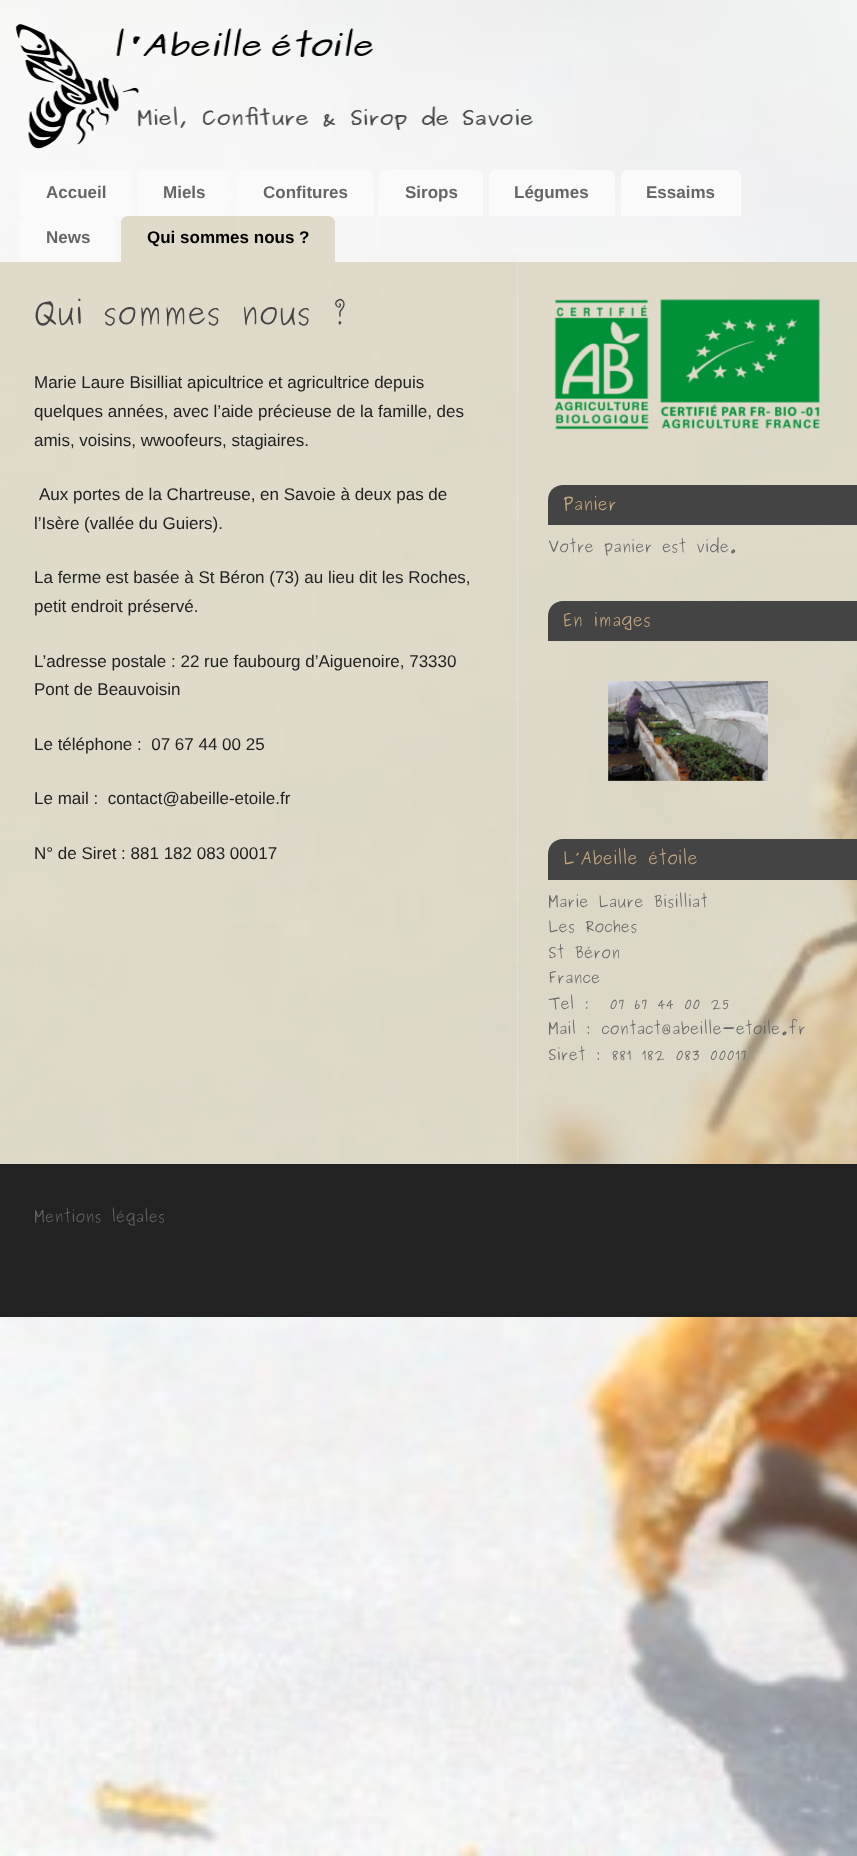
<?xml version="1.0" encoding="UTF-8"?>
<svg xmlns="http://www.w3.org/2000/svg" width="857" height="1856">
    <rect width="100%" height="100%" fill="#FFFFFF"/>
    <image x="0" y="0" width="857" height="1856" href="img_01.png"/>
    <image x="15" y="24" width="518" height="125" href="img_02.png"/>
    <path d="M 27 170 H 124 C 128 170 131 173 131 177 V 216 H 20 V 177 C 20 173 23 170 27 170 Z" fill="#FAFAFA"/>
    <text x="46" y="198" font-family="Liberation Sans" font-size="17" font-weight="700" fill="#666666">Accueil</text>
    <path d="M 144 170 H 224 C 228 170 231 173 231 177 V 216 H 137 V 177 C 137 173 140 170 144 170 Z" fill="#FAFAFA"/>
    <text x="163" y="198" font-family="Liberation Sans" font-size="17" font-weight="700" fill="#666666">Miels</text>
    <path d="M 244 170 H 366 C 370 170 373 173 373 177 V 216 H 237 V 177 C 237 173 240 170 244 170 Z" fill="#FAFAFA"/>
    <text x="263" y="198" font-family="Liberation Sans" font-size="17" font-weight="700" fill="#666666">Confitures</text>
    <path d="M 386 170 H 476 C 480 170 483 173 483 177 V 216 H 379 V 177 C 379 173 382 170 386 170 Z" fill="#FAFAFA"/>
    <text x="405" y="198" font-family="Liberation Sans" font-size="17" font-weight="700" fill="#666666">Sirops</text>
    <path d="M 496 170 H 608 C 612 170 615 173 615 177 V 216 H 489 V 177 C 489 173 492 170 496 170 Z" fill="#FAFAFA"/>
    <text x="514" y="198" font-family="Liberation Sans" font-size="17" font-weight="700" fill="#666666">Légumes</text>
    <path d="M 628 170 H 734 C 738 170 741 173 741 177 V 216 H 621 V 177 C 621 173 624 170 628 170 Z" fill="#FAFAFA"/>
    <text x="646" y="198" font-family="Liberation Sans" font-size="17" font-weight="700" fill="#666666">Essaims</text>
    <path d="M 27 216 H 108 C 112 216 115 219 115 223 V 262 H 20 V 223 C 20 219 23 216 27 216 Z" fill="#FAFAFA"/>
    <text x="46" y="243" font-family="Liberation Sans" font-size="17" font-weight="700" fill="#666666">News</text>
    <path d="M 128 216 H 328 C 332 216 335 219 335 223 V 262 H 121 V 223 C 121 219 124 216 128 216 Z" fill="#CEC7AA" fill-opacity="0.6"/>
    <text x="147" y="243" font-family="Liberation Sans" font-size="17" font-weight="700" fill="#000000">Qui sommes nous ?</text>
    <rect x="0" y="262" width="857" height="902" fill="#CEC7AA" fill-opacity="0.6"/>
    <text x="34" y="324" font-family="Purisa" font-size="30" fill="#444444">Qui sommes nous ?</text>
    <text font-family="Liberation Sans" font-size="17" fill="#222222">
        <tspan x="34" y="388">Marie Laure Bisilliat apicultrice et agricultrice depuis</tspan>
        <tspan x="34" y="417">quelques années, avec l’aide précieuse de la famille, des</tspan>
        <tspan x="34" y="446">amis, voisins, wwoofeurs, stagiaires.</tspan>
    </text>
    <text x="39" y="500" font-family="Liberation Sans" font-size="17" fill="#222222">Aux portes de la Chartreuse, en Savoie à deux pas de</text>
    <text x="34" y="529" font-family="Liberation Sans" font-size="17" fill="#222222">l’Isère (vallée du Guiers).</text>
    <text font-family="Liberation Sans" font-size="17" fill="#222222">
        <tspan x="34" y="583">La ferme est basée à St Béron (73) au lieu dit les Roches,</tspan>
        <tspan x="34" y="612">petit endroit préservé.</tspan>
    </text>
    <text font-family="Liberation Sans" font-size="17" fill="#222222">
        <tspan x="34" y="667">L’adresse postale : 22 rue faubourg d’Aiguenoire, 73330</tspan>
        <tspan x="34" y="695">Pont de Beauvoisin</tspan>
    </text>
    <text x="34" y="750" font-family="Liberation Sans" font-size="17" fill="#222222" xml:space="preserve">Le téléphone :  07 67 44 00 25</text>
    <text x="34" y="804" font-family="Liberation Sans" font-size="17" fill="#222222" xml:space="preserve">Le mail :  contact@abeille-etoile.fr</text>
    <text x="34" y="859" font-family="Liberation Sans" font-size="17" fill="#222222">N° de Siret : 881 182 083 00017</text>
    <path d="M 517.5 262 V 1164" fill="none" stroke="#EAEAEA" stroke-dasharray="1 1"/>
    <image x="554" y="299" width="266" height="131" href="img_03.png"/>
    <path d="M 563 485 H 857 V 525 H 548 V 500 C 548 491.5 554.5 485 563 485 Z" fill="#444444"/>
    <text x="563" y="510" font-family="Purisa" font-size="16.5" fill="#C8AA81">Panier</text>
    <text x="548" y="552" font-family="Purisa" font-size="15" fill="#666666">Votre panier est vide.</text>
    <path d="M 563 601 H 857 V 641 H 548 V 616 C 548 607.5 554.5 601 563 601 Z" fill="#444444"/>
    <text x="563" y="626" font-family="Purisa" font-size="16.5" fill="#C8AA81">En images</text>
    <image x="608" y="681" width="160" height="100" href="img_04.png"/>
    <path d="M 563 839 H 857 V 880 H 548 V 854 C 548 845.5 554.5 839 563 839 Z" fill="#444444"/>
    <text x="563" y="864" font-family="Purisa" font-size="16.5" fill="#C8AA81">L’Abeille étoile</text>
    <text font-family="Purisa" font-size="15" fill="#666666" xml:space="preserve"><tspan x="548" y="907">Marie Laure Bisilliat</tspan><tspan x="548" y="932">Les Roches</tspan><tspan x="548" y="958">St Béron</tspan><tspan x="548" y="983">France</tspan><tspan x="548" y="1009">Tel :  07 67 44 00 25</tspan><tspan x="548" y="1034">Mail : contact@abeille-etoile.fr</tspan><tspan x="548" y="1060">Siret : 881 182 083 00017</tspan></text>
    <rect x="0" y="1164" width="857" height="153" fill="#222222"/>
    <text x="34" y="1222" font-family="Purisa" font-size="15" fill="#666666">Mentions légales</text>
</svg>
